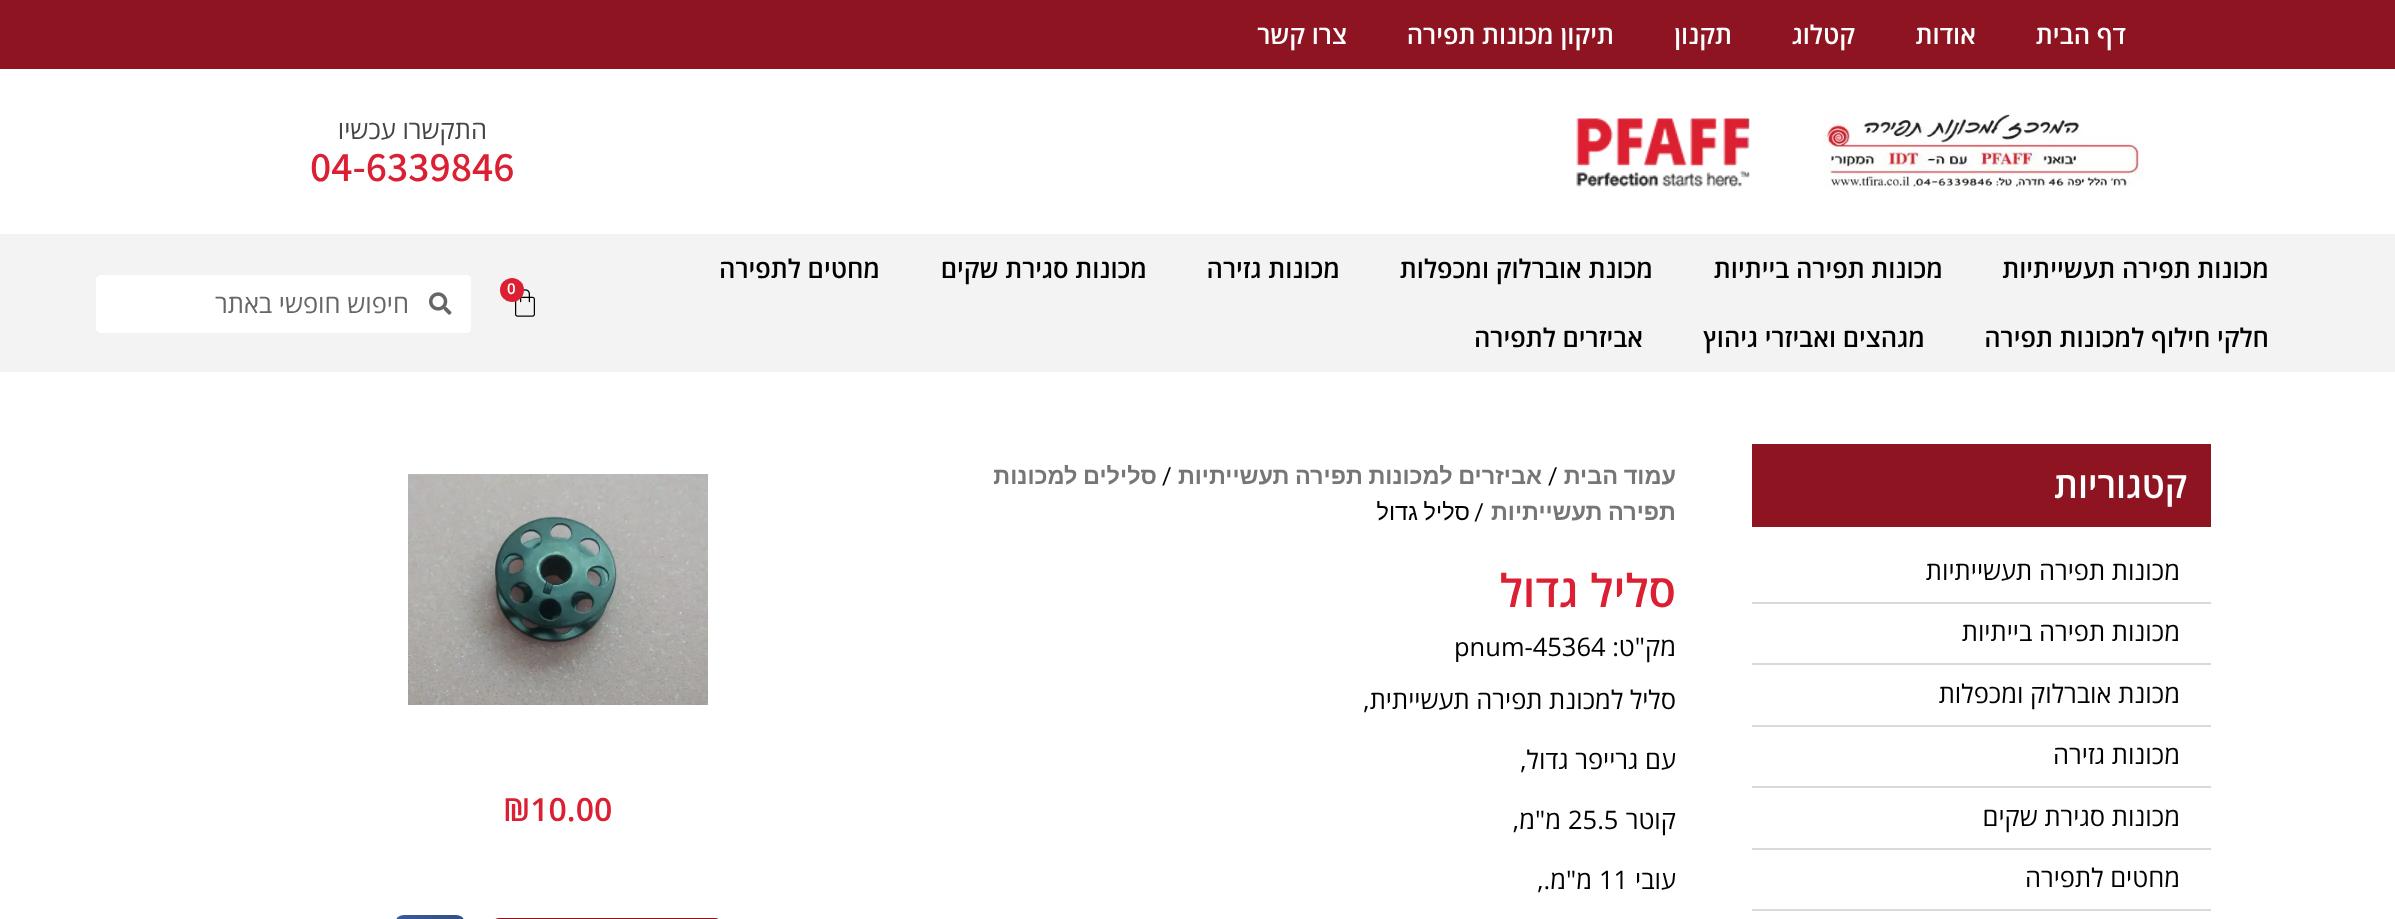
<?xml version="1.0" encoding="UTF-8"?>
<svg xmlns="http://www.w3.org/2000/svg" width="2395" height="919">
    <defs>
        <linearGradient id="g1" gradientUnits="userSpaceOnUse" x1="464" y1="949" x2="396" y2="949"><stop offset="0" stop-color="#000000" stop-opacity="0.12"/><stop offset="1" stop-color="#000000" stop-opacity="0"/></linearGradient>
    </defs>
    <rect width="100%" height="100%" fill="#FFFFFF"/>
    <rect x="0" y="0" width="2395" height="69" fill="#8D1420"/>
    <text x="2126" y="44" font-family="Open Sans" font-size="25.5" font-weight="600" direction="rtl" fill="#FFFFFF">דף הבית</text>
    <text x="1976" y="44" font-family="Open Sans" font-size="25.5" font-weight="600" direction="rtl" fill="#FFFFFF">אודות</text>
    <text x="1855" y="44" font-family="Open Sans" font-size="25.5" font-weight="600" direction="rtl" fill="#FFFFFF">קטלוג</text>
    <text x="1732" y="44" font-family="Open Sans" font-size="25.5" font-weight="600" direction="rtl" fill="#FFFFFF">תקנון</text>
    <text x="1614" y="44" font-family="Open Sans" font-size="25.5" font-weight="600" direction="rtl" fill="#FFFFFF">תיקון מכונות תפירה</text>
    <text x="1347" y="44" font-family="Open Sans" font-size="25.5" font-weight="600" direction="rtl" fill="#FFFFFF">צרו קשר</text>
    <image x="1822" y="113" width="322" height="75" href="img_01.png"/>
    <image x="1576" y="118" width="174" height="69" href="img_02.png"/>
    <text x="487" y="139" font-family="Open Sans" font-size="25.5" direction="rtl" fill="#454545">התקשרו עכשיו</text>
    <text x="310" y="181" font-family="Assistant" font-size="42" font-weight="600" fill="#DA2032">04-6339846</text>
    <rect x="0" y="234" width="2395" height="138" fill="#F3F3F3"/>
    <text x="2269" y="278" font-family="Open Sans" font-size="25.5" font-weight="600" direction="rtl" fill="#000000">מכונות תפירה תעשייתיות</text>
    <text x="1943" y="278" font-family="Open Sans" font-size="25.5" font-weight="600" direction="rtl" fill="#000000">מכונות תפירה בייתיות</text>
    <text x="1653" y="278" font-family="Open Sans" font-size="25.5" font-weight="600" direction="rtl" fill="#000000">מכונת אוברלוק ומכפלות</text>
    <text x="1340" y="278" font-family="Open Sans" font-size="25.5" font-weight="600" direction="rtl" fill="#000000">מכונות גזירה</text>
    <text x="1147" y="278" font-family="Open Sans" font-size="25.5" font-weight="600" direction="rtl" fill="#000000">מכונות סגירת שקים</text>
    <text x="880" y="278" font-family="Open Sans" font-size="25.5" font-weight="600" direction="rtl" fill="#000000">מחטים לתפירה</text>
    <text x="2269" y="347" font-family="Open Sans" font-size="25.5" font-weight="600" direction="rtl" fill="#000000">חלקי חילוף למכונות תפירה</text>
    <text x="1925" y="347" font-family="Open Sans" font-size="25.5" font-weight="600" direction="rtl" fill="#000000">מגהצים ואביזרי גיהוץ</text>
    <text x="1643" y="347" font-family="Open Sans" font-size="25.5" font-weight="600" direction="rtl" fill="#000000">אביזרים לתפירה</text>
    <image x="515" y="289" width="20" height="28" href="img_03.png"/>
    <circle cx="512" cy="290" r="12" fill="#DA2032"/>
    <text x="507" y="294" font-family="Open Sans" font-size="15" font-weight="600" fill="#FFFFFF">0</text>
    <rect x="96" y="275" width="375" height="58" rx="5" fill="#FFFFFF"/>
    <image x="429" y="292" width="23" height="23" href="img_04.png"/>
    <text x="409" y="313" font-family="Open Sans" font-size="25.5" direction="rtl" fill="#666666">חיפוש חופשי באתר</text>
    <rect x="1752" y="444" width="459" height="83" fill="#8D1420"/>
    <text x="2187" y="498" font-family="Open Sans" font-size="36" font-weight="600" direction="rtl" fill="#FFFFFF">קטגוריות</text>
    <rect x="1752" y="602" width="459" height="2" fill="#D9D9D9"/>
    <text x="2180" y="580" font-family="Open Sans" font-size="25.5" direction="rtl" fill="#000000">מכונות תפירה תעשייתיות</text>
    <rect x="1752" y="663" width="459" height="2" fill="#D9D9D9"/>
    <text x="2180" y="641" font-family="Open Sans" font-size="25.5" direction="rtl" fill="#000000">מכונות תפירה בייתיות</text>
    <rect x="1752" y="725" width="459" height="2" fill="#D9D9D9"/>
    <text x="2180" y="703" font-family="Open Sans" font-size="25.5" direction="rtl" fill="#000000">מכונת אוברלוק ומכפלות</text>
    <rect x="1752" y="786" width="459" height="2" fill="#D9D9D9"/>
    <text x="2180" y="764" font-family="Open Sans" font-size="25.5" direction="rtl" fill="#000000">מכונות גזירה</text>
    <rect x="1752" y="848" width="459" height="2" fill="#D9D9D9"/>
    <text x="2180" y="826" font-family="Open Sans" font-size="25.5" direction="rtl" fill="#000000">מכונות סגירת שקים</text>
    <rect x="1752" y="909" width="459" height="2" fill="#D9D9D9"/>
    <text x="2180" y="887" font-family="Open Sans" font-size="25.5" direction="rtl" fill="#000000">מחטים לתפירה</text>
    <text x="1676" y="484" word-spacing="-1" font-family="Liberation Sans" font-size="23.5" font-weight="700" direction="rtl" fill="#767676">עמוד הבית</text>
    <text x="1548" y="484" font-family="Roboto" font-size="23.5" fill="#000000">/</text>
    <text x="1542" y="484" word-spacing="-1" font-family="Liberation Sans" font-size="23.5" font-weight="700" direction="rtl" fill="#767676">אביזרים למכונות תפירה תעשייתיות</text>
    <text x="1162" y="484" font-family="Roboto" font-size="23.5" fill="#000000">/</text>
    <text x="1157" y="484" word-spacing="-1" font-family="Liberation Sans" font-size="23.5" font-weight="700" direction="rtl" fill="#767676">סלילים למכונות</text>
    <text x="1676" y="520" word-spacing="-1" font-family="Liberation Sans" font-size="23.5" font-weight="700" direction="rtl" fill="#767676">תפירה תעשייתיות</text>
    <text x="1484" y="520" font-family="Roboto" font-size="23.5" direction="rtl" fill="#000000">/</text>
    <text x="1470" y="520" word-spacing="-1" font-family="Liberation Sans" font-size="23.5" direction="rtl" fill="#000000">סליל גדול</text>
    <text x="1676" y="607" font-family="Open Sans" font-size="45" font-weight="600" direction="rtl" fill="#DA2032">סליל גדול</text>
    <text x="1676" y="656" font-family="Open Sans" font-size="25.5" direction="rtl" fill="#000000">מק"ט:</text>
    <text x="1454" y="656" font-family="Open Sans" font-size="25.5" fill="#000000">pnum-45364</text>
    <text x="1676" y="709" font-family="Open Sans" font-size="25.5" direction="rtl" fill="#000000">סליל למכונת תפירה תעשייתית,</text>
    <text x="1676" y="769" font-family="Open Sans" font-size="25.5" direction="rtl" fill="#000000">עם גרייפר גדול,</text>
    <text x="1676" y="829" font-family="Open Sans" font-size="25.5" direction="rtl" fill="#000000">קוטר</text>
    <text x="1568" y="829" font-family="Open Sans" font-size="25.5" fill="#000000">25.5</text>
    <text x="1561" y="829" font-family="Open Sans" font-size="25.5" direction="rtl" fill="#000000">מ"מ,</text>
    <text x="1676" y="889" font-family="Open Sans" font-size="25.5" direction="rtl" fill="#000000">עובי</text>
    <text x="1599" y="889" font-family="Open Sans" font-size="25.5" fill="#000000">11</text>
    <text x="1592" y="889" font-family="Open Sans" font-size="25.5" direction="rtl" fill="#000000">מ"מ.,</text>
    <image x="408" y="474" width="300" height="231" href="img_05.png"/>
    <text x="503" y="821" font-family="Open Sans" font-size="32" font-weight="600" fill="#DA2032">₪10.00</text>
    <rect x="494" y="918" width="226" height="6" rx="5" fill="#8D1420"/>
    <rect x="396" y="915" width="68" height="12" rx="8" fill="#3B5998"/>
    <rect x="396" y="915" width="68" height="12" rx="8" fill="url(#g1)"/>
</svg>
